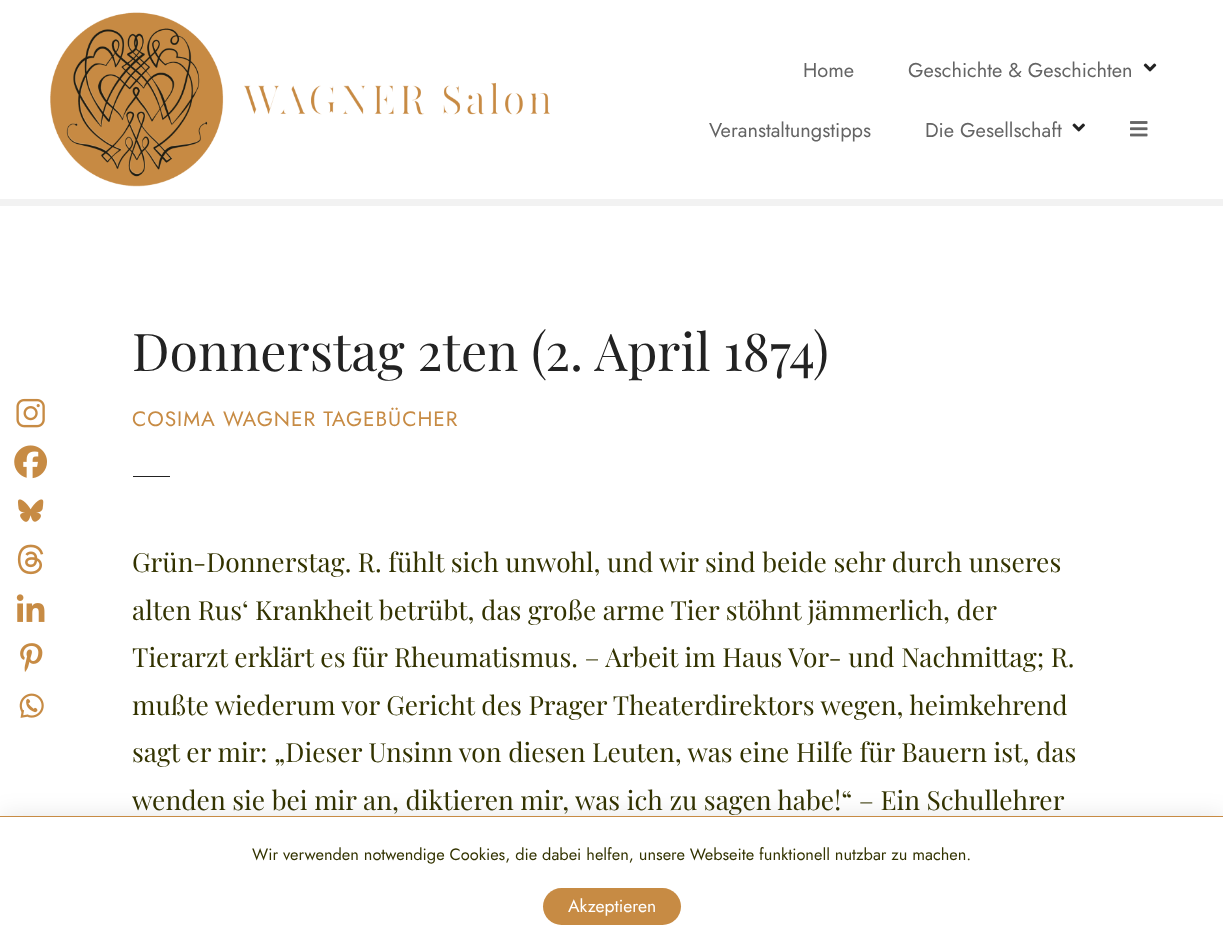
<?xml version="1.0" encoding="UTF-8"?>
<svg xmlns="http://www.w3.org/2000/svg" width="1223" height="949">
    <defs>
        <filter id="blur1" x="-50%" y="-200%" width="200%" height="500%"><feGaussianBlur stdDeviation="12.5"/></filter>
    </defs>
    <rect width="100%" height="100%" fill="#FFFFFF"/>
    <image x="50" y="12" width="500" height="175" href="img_01.png"/>
    <text x="803" y="77" font-family="Jost" font-size="20" fill="#646464">Home</text>
    <text x="908" y="77" font-family="Jost" font-size="20" fill="#646464">Geschichte &amp; Geschichten</text>
    <image x="1143" y="63" width="14" height="9" href="img_02.png"/>
    <text x="709" y="137" font-family="Jost" font-size="20" fill="#646464">Veranstaltungstipps</text>
    <text x="925" y="137" font-family="Jost" font-size="20" fill="#646464">Die Gesellschaft</text>
    <image x="1072" y="123" width="13" height="9" href="img_03.png"/>
    <image x="1130" y="121" width="18" height="16" href="img_04.png"/>
    <rect x="0" y="199" width="1223" height="7" fill="#F2F2F2"/>
    <text x="132" y="371" font-family="Playfair Display" font-size="52" fill="#222222">Donnerstag 2ten (2. April 1874)</text>
    <text x="132" y="426" font-family="Jost" font-size="20.9" letter-spacing="0.95" fill="#C78B44">COSIMA WAGNER TAGEBÜCHER</text>
    <rect x="133" y="476" width="37" height="1" fill="#222222"/>
    <image x="16" y="398" width="29" height="30" href="img_05.png"/>
    <image x="14" y="445" width="33" height="34" href="img_06.png"/>
    <image x="18" y="499" width="26" height="23" href="img_07.png"/>
    <image x="17" y="544" width="27" height="31" href="img_08.png"/>
    <image x="16" y="594" width="29" height="28" href="img_09.png"/>
    <image x="20" y="643" width="23" height="29" href="img_10.png"/>
    <image x="19" y="693" width="25" height="25" href="img_11.png"/>
    <text font-family="Playfair Display" font-size="26.4" fill="#333300">
        <tspan x="132" y="572">Grün-Donnerstag. R. fühlt sich unwohl, und wir sind beide sehr durch unseres</tspan>
        <tspan x="132" y="620">alten Rus‘ Krankheit betrübt, das große arme Tier stöhnt jämmerlich, der</tspan>
        <tspan x="132" y="667">Tierarzt erklärt es für Rheumatismus. – Arbeit im Haus Vor- und Nachmittag; R.</tspan>
        <tspan x="132" y="715">mußte wiederum vor Gericht des Prager Theaterdirektors wegen, heimkehrend</tspan>
        <tspan x="132" y="762">sagt er mir: „Dieser Unsinn von diesen Leuten, was eine Hilfe für Bauern ist, das</tspan>
        <tspan x="132" y="810">wenden sie bei mir an, diktieren mir, was ich zu sagen habe!“ – Ein Schullehrer</tspan>
    </text>
    <rect x="0" y="816" width="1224" height="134" fill="#000000" fill-opacity="0.1" filter="url(#blur1)"/>
    <rect x="0" y="817" width="1223" height="132" fill="#FFFFFF"/>
    <rect x="0" y="816" width="1223" height="1" fill="#C78B44"/>
    <text x="252" y="860" font-family="Jost" font-size="16.4" fill="#333300">Wir verwenden notwendige Cookies, die dabei helfen, unsere Webseite funktionell nutzbar zu machen.</text>
    <rect x="543" y="888" width="138" height="37" rx="18.5" fill="#C78B44"/>
    <text x="568" y="912" font-family="Jost" font-size="17.5" fill="#FFFFFF">Akzeptieren</text>
</svg>
